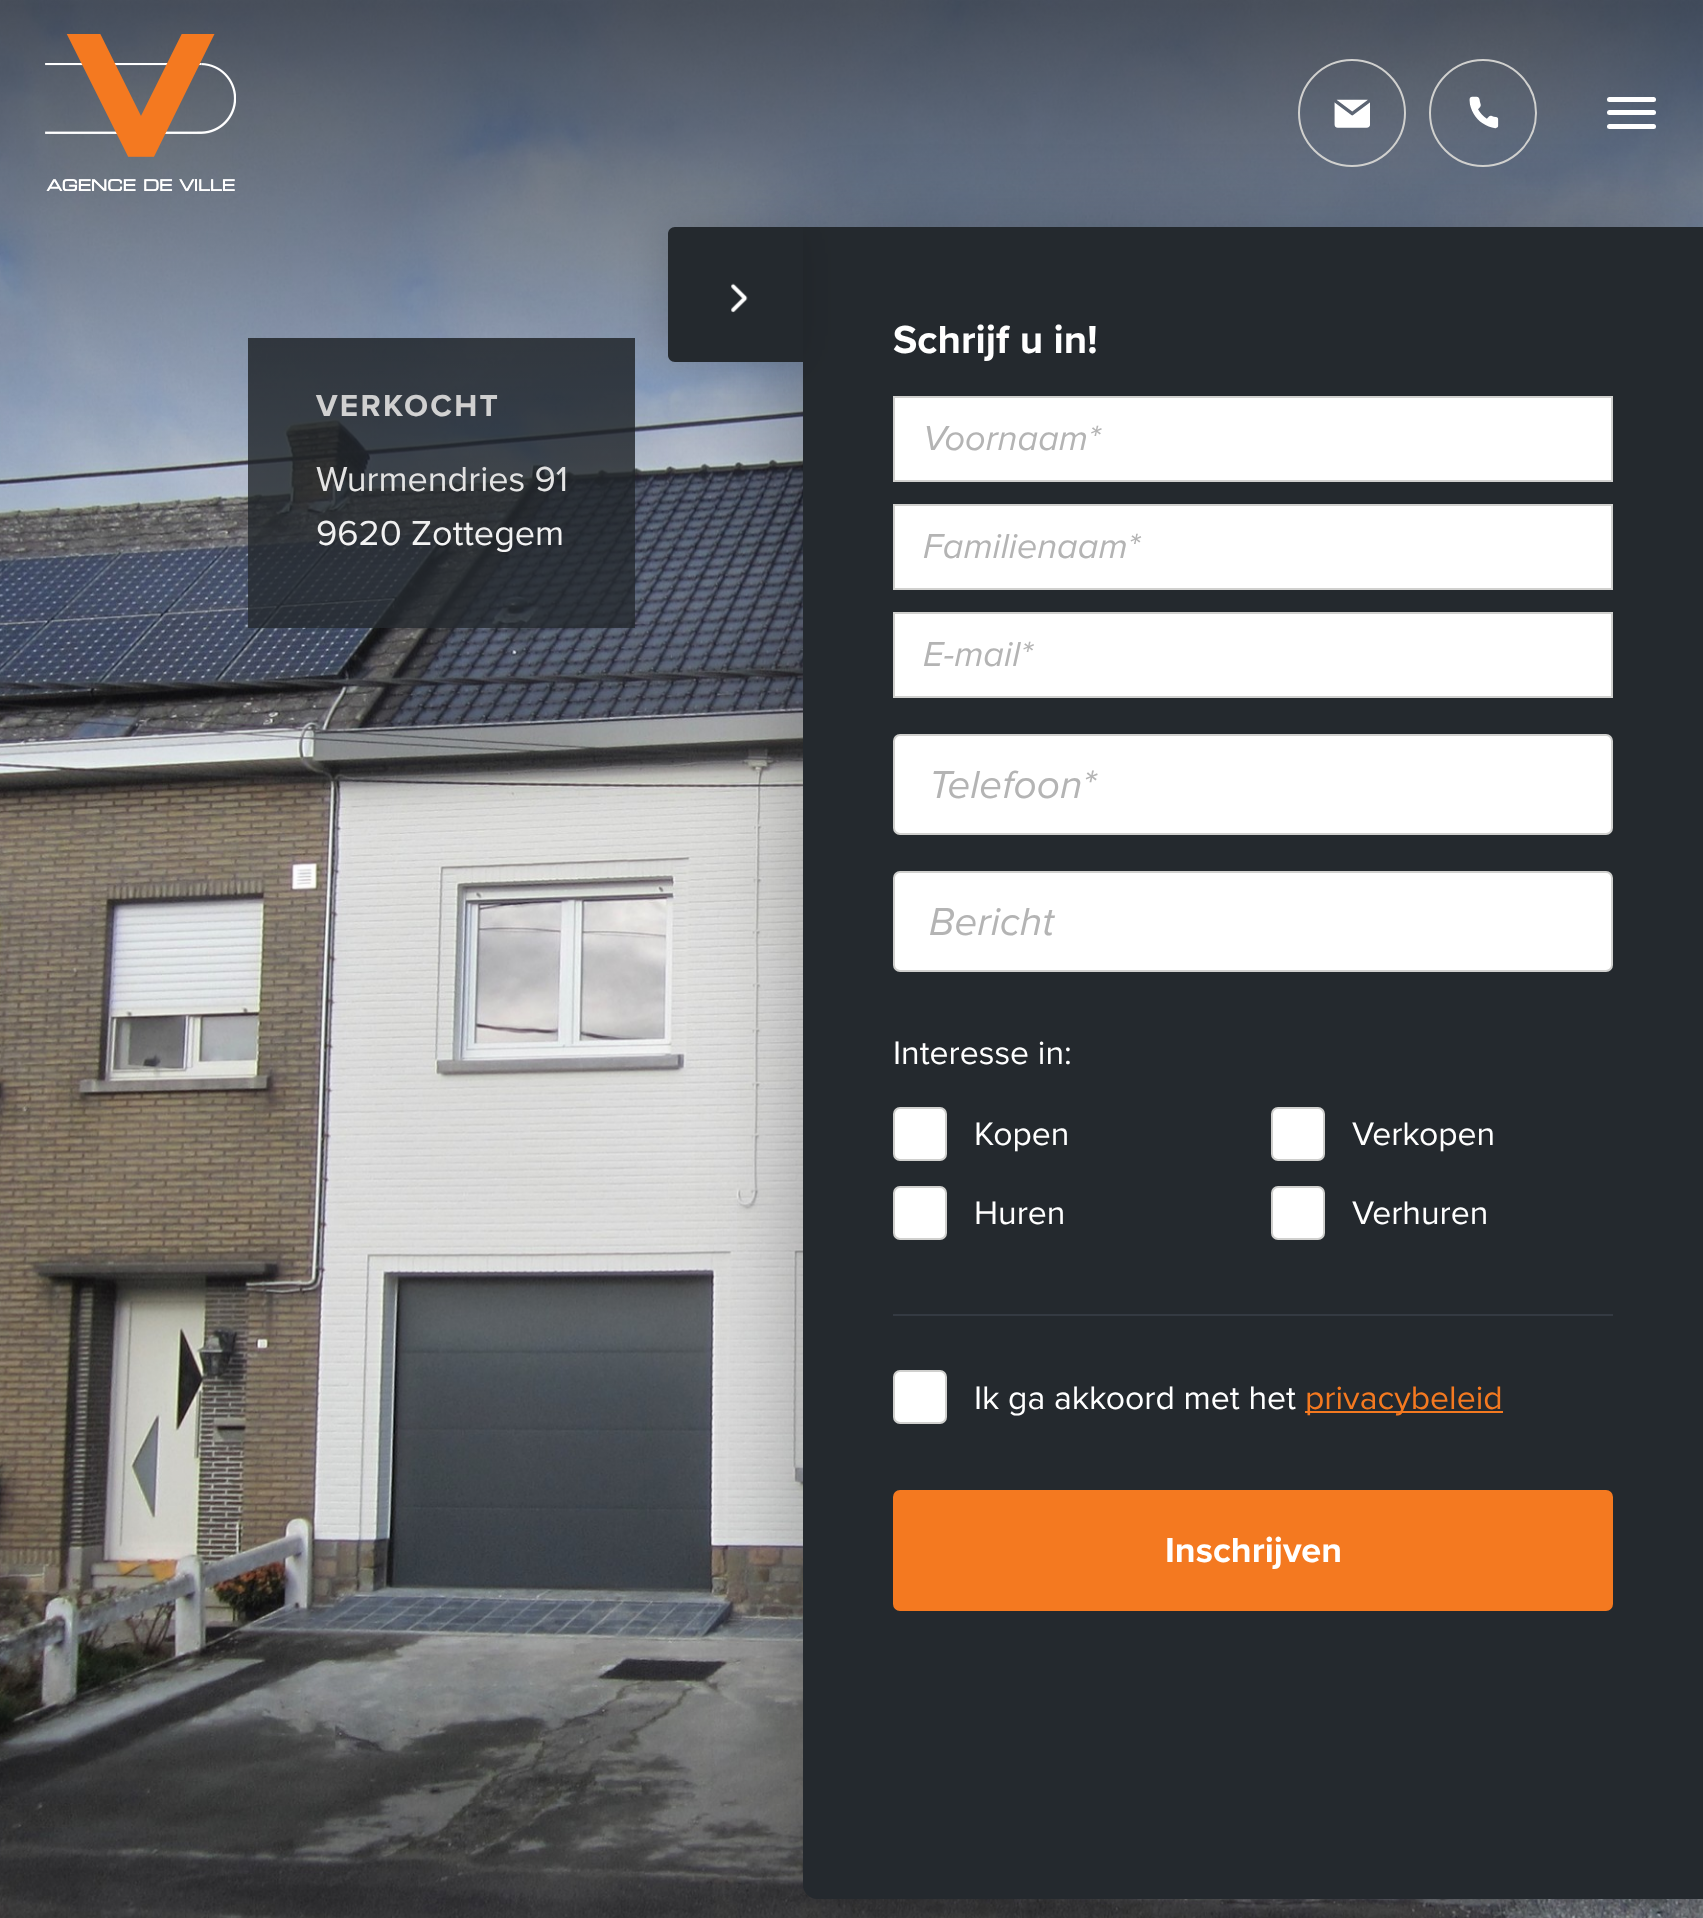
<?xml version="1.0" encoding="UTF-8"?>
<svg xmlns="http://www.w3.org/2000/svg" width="1703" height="1918">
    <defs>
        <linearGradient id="g1" gradientUnits="userSpaceOnUse" x1="852" y1="0" x2="852" y2="585"><stop offset="0" stop-color="#000000" stop-opacity="0.6"/><stop offset="1" stop-color="#000000" stop-opacity="0"/></linearGradient>
        <filter id="blur1" x="-50%" y="-200%" width="200%" height="500%"><feGaussianBlur stdDeviation="45"/></filter>
        <filter id="blur2" x="-50%" y="-200%" width="200%" height="500%"><feGaussianBlur stdDeviation="22.5"/></filter>
    </defs>
    <rect width="100%" height="100%" fill="#FFFFFF"/>
    <image x="0" y="0" width="1703" height="1918" href="img_04.png"/>
    <rect x="248" y="338" width="387" height="290" fill="#24292E" fill-opacity="0.8"/>
    <text x="316" y="416" font-family="Proxima Nova" font-size="31.5" font-weight="700" letter-spacing="2.25" fill="#FFFFFF">VERKOCHT</text>
    <text font-family="Proxima Nova" font-size="36" fill="#FFFFFF">
        <tspan x="316" y="491">Wurmendries 91</tspan>
        <tspan x="316" y="545">9620 Zottegem</tspan>
    </text>
    <rect x="0" y="0" width="1703" height="564" fill="url(#g1)"/>
    <image x="45" y="34" width="191" height="157" href="img_01.png"/>
    <rect x="792" y="227" width="900" height="1672" rx="14" fill="#000000" fill-opacity="0.25" filter="url(#blur1)"/>
    <circle cx="1352" cy="113" r="53" fill="none" stroke="#D0D0CE" stroke-width="2"/>
    <image x="1334" y="99" width="36" height="29" href="img_02.png"/>
    <circle cx="1483" cy="113" r="53" fill="none" stroke="#D0D0CE" stroke-width="2"/>
    <image x="1469" y="96" width="30" height="33" href="img_03.png"/>
    <rect x="1607" y="97" width="49" height="5" rx="2.5" fill="#FFFFFF"/>
    <rect x="1607" y="110" width="49" height="5" rx="2.5" fill="#FFFFFF"/>
    <rect x="1607" y="124" width="49" height="5" rx="2.5" fill="#FFFFFF"/>
    <path d="M 803 227 H 1703 V 1899 H 817 C 809.5 1899 803 1892.5 803 1885 Z" fill="#24292E"/>
    <rect x="664" y="227" width="135" height="135" rx="7" fill="#000000" fill-opacity="0.15" filter="url(#blur2)"/>
    <path d="M 675 227 H 803 V 362 H 675 C 671 362 668 359 668 355 V 234 C 668 230 671 227 675 227 Z" fill="#24292E"/>
    <image x="731" y="283" width="17" height="30" href="img_05.png"/>
    <text x="893" y="353" font-family="Proxima Nova" font-size="40.5" font-weight="700" fill="#FFFFFF">Schrijf u in!</text>
    <rect x="894" y="397" width="718" height="84" fill="#FFFFFF" stroke="#D0D0CE" stroke-width="2"/>
    <text x="923" y="450" font-family="Proxima Nova" font-size="36" font-style="italic" fill="#B4B4B4">Voornaam*</text>
    <rect x="894" y="505" width="718" height="84" fill="#FFFFFF" stroke="#D0D0CE" stroke-width="2"/>
    <text x="923" y="558" font-family="Proxima Nova" font-size="36" font-style="italic" fill="#B4B4B4">Familienaam*</text>
    <rect x="894" y="613" width="718" height="84" fill="#FFFFFF" stroke="#D0D0CE" stroke-width="2"/>
    <text x="923" y="666" font-family="Proxima Nova" font-size="36" font-style="italic" fill="#B4B4B4">E-mail*</text>
    <rect x="894" y="735" width="718" height="99" rx="6" fill="#FFFFFF" stroke="#D0D0CE" stroke-width="2"/>
    <text x="929" y="798" font-family="Proxima Nova" font-size="40.5" font-style="italic" fill="#B4B4B4">Telefoon*</text>
    <rect x="894" y="872" width="718" height="99" rx="6" fill="#FFFFFF" stroke="#D0D0CE" stroke-width="2"/>
    <text x="929" y="935" font-family="Proxima Nova" font-size="40.5" font-style="italic" fill="#B4B4B4">Bericht</text>
    <text x="893" y="1064" font-family="Proxima Nova" font-size="33.75" fill="#FFFFFF">Interesse in:</text>
    <rect x="894" y="1108" width="52" height="52" rx="6" fill="#FFFFFF" stroke="#D0D0CE" stroke-width="2"/>
    <text x="974" y="1145" font-family="Proxima Nova" font-size="33.75" fill="#FFFFFF">Kopen</text>
    <rect x="1272" y="1108" width="52" height="52" rx="6" fill="#FFFFFF" stroke="#D0D0CE" stroke-width="2"/>
    <text x="1352" y="1145" font-family="Proxima Nova" font-size="33.75" fill="#FFFFFF">Verkopen</text>
    <rect x="894" y="1187" width="52" height="52" rx="6" fill="#FFFFFF" stroke="#D0D0CE" stroke-width="2"/>
    <text x="974" y="1224" font-family="Proxima Nova" font-size="33.75" fill="#FFFFFF">Huren</text>
    <rect x="1272" y="1187" width="52" height="52" rx="6" fill="#FFFFFF" stroke="#D0D0CE" stroke-width="2"/>
    <text x="1352" y="1224" font-family="Proxima Nova" font-size="33.75" fill="#FFFFFF">Verhuren</text>
    <rect x="893" y="1314" width="720" height="2" fill="#343A42"/>
    <rect x="894" y="1371" width="52" height="52" rx="6" fill="#FFFFFF" stroke="#D0D0CE" stroke-width="2"/>
    <text x="974" y="1409" font-family="Proxima Nova" font-size="33.75" fill="#FFFFFF">Ik ga akkoord met het</text>
    <rect x="1305" y="1411" width="198" height="2" fill="#F47920"/>
    <text x="1305" y="1409" font-family="Proxima Nova" font-size="33.75" fill="#F47920">privacybeleid</text>
    <rect x="894" y="1491" width="718" height="119" rx="6" fill="#F47920" stroke="#F47920" stroke-width="2"/>
    <text x="1165" y="1562" font-family="Proxima Nova" font-size="36" font-weight="700" fill="#FFFFFF">Inschrijven</text>
</svg>
